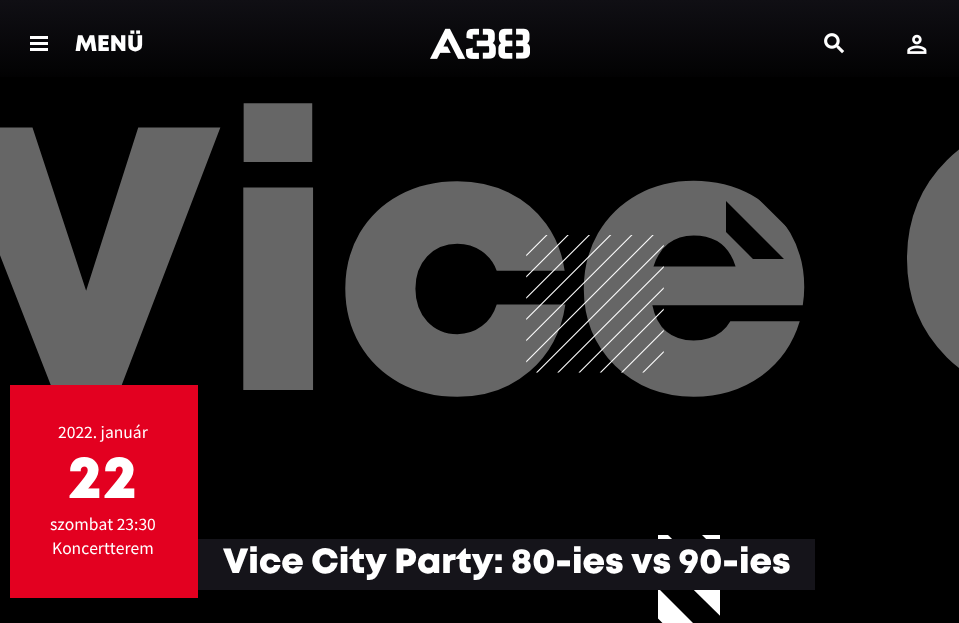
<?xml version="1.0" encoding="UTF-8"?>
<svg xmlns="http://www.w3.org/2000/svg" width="959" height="623">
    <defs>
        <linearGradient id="g1" gradientUnits="userSpaceOnUse" x1="480" y1="0" x2="480" y2="88"><stop offset="0" stop-color="#100F14"/><stop offset="1" stop-color="#000000"/></linearGradient>
        <clipPath id="clip1"><rect x="658" y="535" width="62" height="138"/></clipPath>
    </defs>
    <rect width="100%" height="100%" fill="#000000"/>
    <rect x="0" y="0" width="959" height="77" fill="url(#g1)"/>
    <rect x="30" y="36" width="18" height="3" fill="#FFFFFF"/>
    <rect x="30" y="42" width="18" height="3" fill="#FFFFFF"/>
    <rect x="30" y="48" width="18" height="3" fill="#FFFFFF"/>
    <text x="75" y="51" font-family="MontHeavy" font-size="22.5" fill="#FFFFFF">MENÜ</text>
    <image x="430" y="28" width="100" height="31" href="img_01.png"/>
    <image x="824" y="33" width="21" height="21" href="img_02.png"/>
    <image x="907" y="34" width="20" height="20" href="img_03.png"/>
    <text x="-50" y="390" font-family="MontHeavy" font-size="375" fill="#666666">Vice C</text>
    <path d="M 837 121 H 809 L 864 176 V 147 Z M 726 167 L 819 259 H 848 L 726 137 Z M 745 121 L 864 239 V 210 L 774 121 Z M 726 232 L 753 259 H 784 L 726 201 Z" fill="#000000"/>
    <image x="526" y="235" width="138" height="138" href="img_04.png"/>
    <g clip-path="url(#clip1)">
        <path d="M 731 535 H 702 L 758 590 V 560 Z M 620 581 L 712 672 H 742 L 620 550 Z M 638 535 L 758 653 V 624 L 668 535 Z M 620 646 L 647 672 H 677 L 620 615 Z" fill="#FFFFFF"/>
    </g>
    <rect x="10" y="385" width="188" height="213" fill="#E30020"/>
    <text x="58" y="438" font-family="Source Sans Pro" font-size="17.5" fill="#FFFFFF">2022. január</text>
    <text x="68" y="498" font-family="MontHeavy" font-size="60" letter-spacing="1" fill="#FFFFFF">22</text>
    <text x="50" y="530" font-family="Source Sans Pro" font-size="17.5" fill="#FFFFFF">szombat 23:30</text>
    <text x="52" y="554" font-family="Source Sans Pro" font-size="17.5" fill="#FFFFFF">Koncertterem</text>
    <rect x="198" y="539" width="617" height="51" fill="#15141A"/>
    <text x="223" y="573" font-family="MontHeavy" font-size="35" fill="#FFFFFF">Vice City Party: 80-ies vs 90-ies</text>
</svg>
